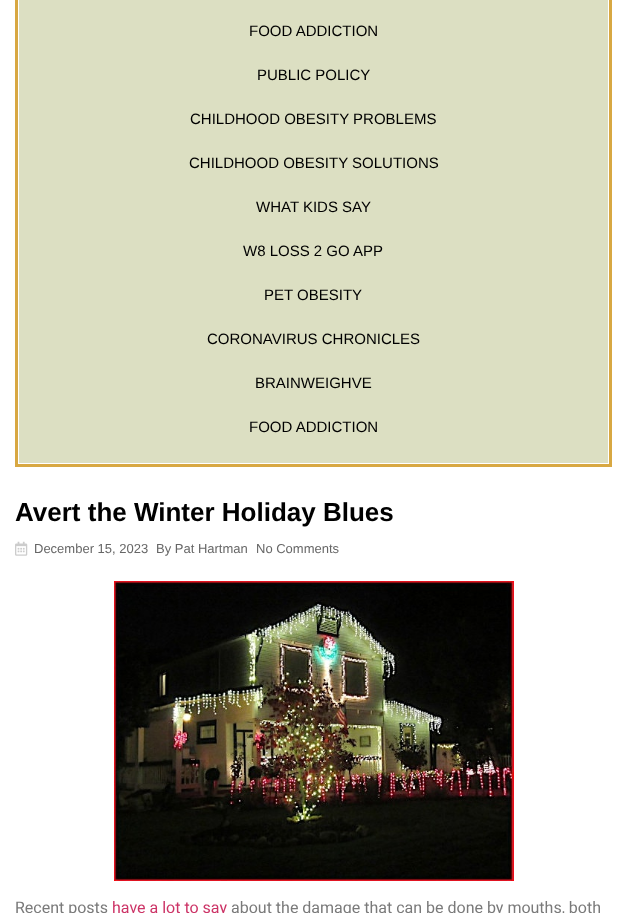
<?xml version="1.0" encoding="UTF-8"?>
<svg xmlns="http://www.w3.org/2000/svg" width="627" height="913">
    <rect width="100%" height="100%" fill="#FFFFFF"/>
    <rect x="19" y="0" width="589" height="463" fill="#DCDFC2"/>
    <rect x="16.5" y="-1.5" width="594" height="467" fill="none" stroke="#D8A842" stroke-width="3"/>
    <text x="249" y="36" font-family="Liberation Sans" font-size="15" fill="#000000">FOOD ADDICTION</text>
    <text x="257" y="80" font-family="Liberation Sans" font-size="15" fill="#000000">PUBLIC POLICY</text>
    <text x="190" y="124" font-family="Liberation Sans" font-size="15" fill="#000000">CHILDHOOD OBESITY PROBLEMS</text>
    <text x="189" y="168" font-family="Liberation Sans" font-size="15" fill="#000000">CHILDHOOD OBESITY SOLUTIONS</text>
    <text x="256" y="212" font-family="Liberation Sans" font-size="15" fill="#000000">WHAT KIDS SAY</text>
    <text x="243" y="256" font-family="Liberation Sans" font-size="15" fill="#000000">W8 LOSS 2 GO APP</text>
    <text x="264" y="300" font-family="Liberation Sans" font-size="15" fill="#000000">PET OBESITY</text>
    <text x="207" y="344" font-family="Liberation Sans" font-size="15" fill="#000000">CORONAVIRUS CHRONICLES</text>
    <text x="255" y="388" font-family="Liberation Sans" font-size="15" fill="#000000">BRAINWEIGHVE</text>
    <text x="249" y="432" font-family="Liberation Sans" font-size="15" fill="#000000">FOOD ADDICTION</text>
    <text x="15" y="521" font-family="Liberation Sans" font-size="26" font-weight="700" fill="#000000">Avert the Winter Holiday Blues</text>
    <image x="15" y="541" width="13" height="15" href="img_01.png"/>
    <text x="34" y="553" font-family="Liberation Sans" font-size="13" fill="#666666">December 15, 2023</text>
    <text x="156" y="553" font-family="Liberation Sans" font-size="13" fill="#666666">By Pat Hartman</text>
    <text x="256" y="553" font-family="Liberation Sans" font-size="13" fill="#666666">No Comments</text>
    <image x="114" y="581" width="400" height="300" href="img_02.png"/>
    <text x="15" y="913" font-family="Roboto" font-size="16" fill="#7A7A7A">Recent posts</text>
    <text x="112" y="913" font-family="Roboto" font-size="16" fill="#CC3366">have a lot to say</text>
    <text x="231" y="913" font-family="Roboto" font-size="16" fill="#7A7A7A">about the damage that can be done by mouths, both</text>
</svg>
